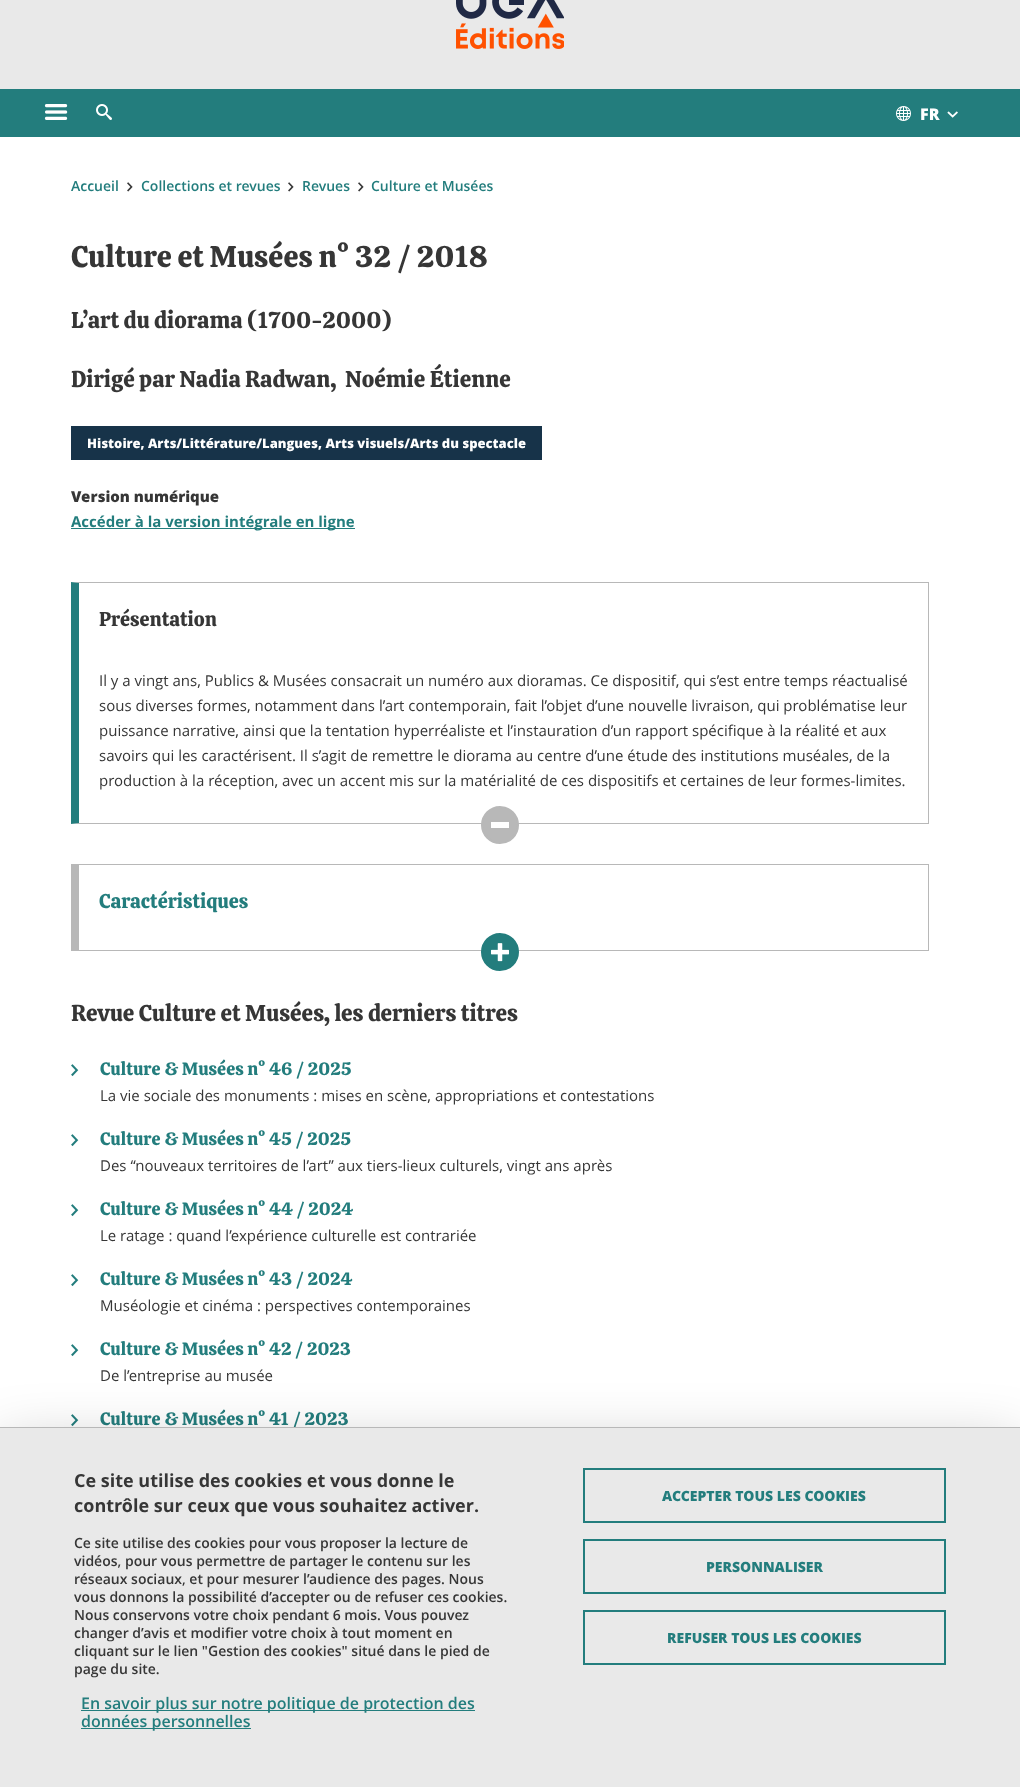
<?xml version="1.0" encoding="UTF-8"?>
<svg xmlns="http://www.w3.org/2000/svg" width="1020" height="1787">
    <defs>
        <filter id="blur1" x="-50%" y="-200%" width="200%" height="500%"><feGaussianBlur stdDeviation="30"/></filter>
    </defs>
    <rect width="100%" height="100%" fill="#FFFFFF"/>
    <rect x="0" y="0" width="1020" height="89" fill="#E9E9E9"/>
    <image x="456" y="0" width="108" height="49" href="img_01.png"/>
    <rect x="0" y="89" width="1020" height="48" fill="#237D7D"/>
    <image x="44" y="104" width="24" height="16" href="img_02.png"/>
    <image x="96" y="104" width="16" height="16" href="img_03.png"/>
    <image x="896" y="106" width="15" height="15" href="img_04.png"/>
    <text x="920" y="120" font-family="Open Sans" font-size="16" font-weight="800" fill="#FFFFFF">FR</text>
    <image x="947" y="111" width="11" height="7" href="img_05.png"/>
    <text x="71" y="191" font-family="Open Sans" font-size="14" font-weight="600" fill="#237D7D">Accueil</text>
    <image x="127" y="182" width="6" height="10" href="img_06.png"/>
    <text x="141" y="191" font-family="Open Sans" font-size="14" font-weight="600" fill="#237D7D">Collections et revues</text>
    <image x="288" y="182" width="6" height="10" href="img_06.png"/>
    <text x="302" y="191" font-family="Open Sans" font-size="14" font-weight="600" fill="#237D7D">Revues</text>
    <image x="358" y="182" width="6" height="10" href="img_06.png"/>
    <text x="371" y="191" font-family="Open Sans" font-size="14" font-weight="600" fill="#237D7D">Culture et Musées</text>
    <text x="71" y="267" font-family="Calistoga" font-size="30" fill="#363636">Culture et Musées n° 32 / 2018</text>
    <text x="71" y="328" font-family="Calistoga" font-size="23" fill="#363636">L’art du diorama (1700-2000)</text>
    <text x="71" y="387" font-family="Calistoga" font-size="23" fill="#363636">Dirigé par Nadia Radwan,</text>
    <text x="345" y="387" font-family="Calistoga" font-size="23" fill="#363636">Noémie Étienne</text>
    <rect x="71" y="426" width="471" height="34" fill="#173349"/>
    <text x="87" y="448" font-family="Open Sans" font-size="13" font-weight="800" fill="#FFFFFF">Histoire, Arts/Littérature/Langues, Arts visuels/Arts du spectacle</text>
    <text x="71" y="502" font-family="Open Sans" font-size="15" font-weight="800" fill="#363636">Version numérique</text>
    <rect x="71" y="528" width="284" height="1" fill="#237D7D"/>
    <text x="71" y="527" font-family="Open Sans" font-size="15" font-weight="700" fill="#237D7D">Accéder à la version intégrale en ligne</text>
    <path d="M 71 582 H 929 L 928 583 H 79 Z" fill="#B8B8B8"/>
    <rect x="928" y="582" width="1" height="242" fill="#B8B8B8"/>
    <path d="M 929 824 H 71 L 79 823 H 928 Z" fill="#B8B8B8"/>
    <path d="M 71 824 V 582 L 79 583 V 823 Z" fill="#237D7D"/>
    <text x="99" y="626" font-family="Calistoga" font-size="20" fill="#363636">Présentation</text>
    <text font-family="Open Sans" font-size="15" fill="#363636">
        <tspan x="99" y="686">Il y a vingt ans, Publics &amp; Musées consacrait un numéro aux dioramas. Ce dispositif, qui s’est entre temps réactualisé</tspan>
        <tspan x="99" y="711">sous diverses formes, notamment dans l’art contemporain, fait l’objet d’une nouvelle livraison, qui problématise leur</tspan>
        <tspan x="99" y="736">puissance narrative, ainsi que la tentation hyperréaliste et l’instauration d’un rapport spécifique à la réalité et aux</tspan>
        <tspan x="99" y="761">savoirs qui les caractérisent. Il s’agit de remettre le diorama au centre d’une étude des institutions muséales, de la</tspan>
        <tspan x="99" y="786">production à la réception, avec un accent mis sur la matérialité de ces dispositifs et certaines de leur formes-limites.</tspan>
    </text>
    <circle cx="500" cy="825" r="18" fill="#B8B8B8" stroke="#B8B8B8" stroke-width="2"/>
    <rect x="491" y="822" width="18" height="6" fill="#FFFFFF"/>
    <rect x="71" y="864" width="858" height="1" fill="#B8B8B8"/>
    <rect x="928" y="864" width="1" height="87" fill="#B8B8B8"/>
    <rect x="71" y="950" width="858" height="1" fill="#B8B8B8"/>
    <rect x="71" y="864" width="8" height="87" fill="#B8B8B8"/>
    <text x="99" y="908" font-family="Calistoga" font-size="20" fill="#237D7D">Caractéristiques</text>
    <circle cx="500" cy="952" r="18" fill="#237D7D" stroke="#237D7D" stroke-width="2"/>
    <image x="491" y="943" width="18" height="19" href="img_07.png"/>
    <text x="71" y="1021" font-family="Calistoga" font-size="23" fill="#363636">Revue Culture et Musées, les derniers titres</text>
    <image x="71" y="1064" width="8" height="13" href="img_08.png"/>
    <text x="100" y="1075" font-family="Calistoga" font-size="18" fill="#237D7D">Culture &amp; Musées n° 46 / 2025</text>
    <text x="100" y="1101" font-family="Open Sans" font-size="15" fill="#363636">La vie sociale des monuments : mises en scène, appropriations et contestations</text>
    <image x="71" y="1134" width="8" height="13" href="img_08.png"/>
    <text x="100" y="1145" font-family="Calistoga" font-size="18" fill="#237D7D">Culture &amp; Musées n° 45 / 2025</text>
    <text x="100" y="1171" font-family="Open Sans" font-size="15" fill="#363636">Des “nouveaux territoires de l’art” aux tiers-lieux culturels, vingt ans après</text>
    <image x="71" y="1204" width="8" height="13" href="img_08.png"/>
    <text x="100" y="1215" font-family="Calistoga" font-size="18" fill="#237D7D">Culture &amp; Musées n° 44 / 2024</text>
    <text x="100" y="1241" font-family="Open Sans" font-size="15" fill="#363636">Le ratage : quand l’expérience culturelle est contrariée</text>
    <image x="71" y="1274" width="8" height="13" href="img_08.png"/>
    <text x="100" y="1285" font-family="Calistoga" font-size="18" fill="#237D7D">Culture &amp; Musées n° 43 / 2024</text>
    <text x="100" y="1311" font-family="Open Sans" font-size="15" fill="#363636">Muséologie et cinéma : perspectives contemporaines</text>
    <image x="71" y="1344" width="8" height="13" href="img_08.png"/>
    <text x="100" y="1355" font-family="Calistoga" font-size="18" fill="#237D7D">Culture &amp; Musées n° 42 / 2023</text>
    <text x="100" y="1381" font-family="Open Sans" font-size="15" fill="#363636">De l’entreprise au musée</text>
    <image x="71" y="1414" width="8" height="13" href="img_08.png"/>
    <text x="100" y="1425" font-family="Calistoga" font-size="18" fill="#237D7D">Culture &amp; Musées n° 41 / 2023</text>
    <rect x="0" y="1447" width="1020" height="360" fill="#000000" fill-opacity="0.25" filter="url(#blur1)"/>
    <rect x="0" y="1428" width="1020" height="359" fill="#E9E9E9"/>
    <rect x="0" y="1427" width="1020" height="1" fill="#B8B8B8"/>
    <text font-family="Open Sans" font-size="18" font-weight="700" fill="#363636">
        <tspan x="74" y="1487">Ce site utilise des cookies et vous donne le</tspan>
        <tspan x="74" y="1512">contrôle sur ceux que vous souhaitez activer.</tspan>
    </text>
    <text font-family="Open Sans" font-size="14" font-weight="600" fill="#363636">
        <tspan x="74" y="1548">Ce site utilise des cookies pour vous proposer la lecture de</tspan>
        <tspan x="74" y="1566">vidéos, pour vous permettre de partager le contenu sur les</tspan>
        <tspan x="74" y="1584">réseaux sociaux, et pour mesurer l’audience des pages. Nous</tspan>
        <tspan x="74" y="1602">vous donnons la possibilité d’accepter ou de refuser ces cookies.</tspan>
        <tspan x="74" y="1620">Nous conservons votre choix pendant 6 mois. Vous pouvez</tspan>
        <tspan x="74" y="1638">changer d’avis et modifier votre choix à tout moment en</tspan>
        <tspan x="74" y="1656">cliquant sur le lien "Gestion des cookies" situé dans le pied de</tspan>
        <tspan x="74" y="1674">page du site.</tspan>
    </text>
    <rect x="81" y="1710" width="394" height="1" fill="#237D7D"/>
    <text x="81" y="1709" font-family="Open Sans" font-size="16" font-weight="600" fill="#237D7D">En savoir plus sur notre politique de protection des</text>
    <rect x="81" y="1728" width="170" height="1" fill="#237D7D"/>
    <text x="81" y="1727" font-family="Open Sans" font-size="16" font-weight="600" fill="#237D7D">données personnelles</text>
    <rect x="584" y="1469" width="361" height="53" fill="none" stroke="#237D7D" stroke-width="2"/>
    <text x="662" y="1501" font-family="Open Sans" font-size="14" font-weight="800" fill="#237D7D">ACCEPTER TOUS LES COOKIES</text>
    <rect x="584" y="1540" width="361" height="53" fill="none" stroke="#237D7D" stroke-width="2"/>
    <text x="706" y="1572" font-family="Open Sans" font-size="14" font-weight="800" fill="#237D7D">PERSONNALISER</text>
    <rect x="584" y="1611" width="361" height="53" fill="none" stroke="#237D7D" stroke-width="2"/>
    <text x="667" y="1643" font-family="Open Sans" font-size="14" font-weight="800" fill="#237D7D">REFUSER TOUS LES COOKIES</text>
</svg>
